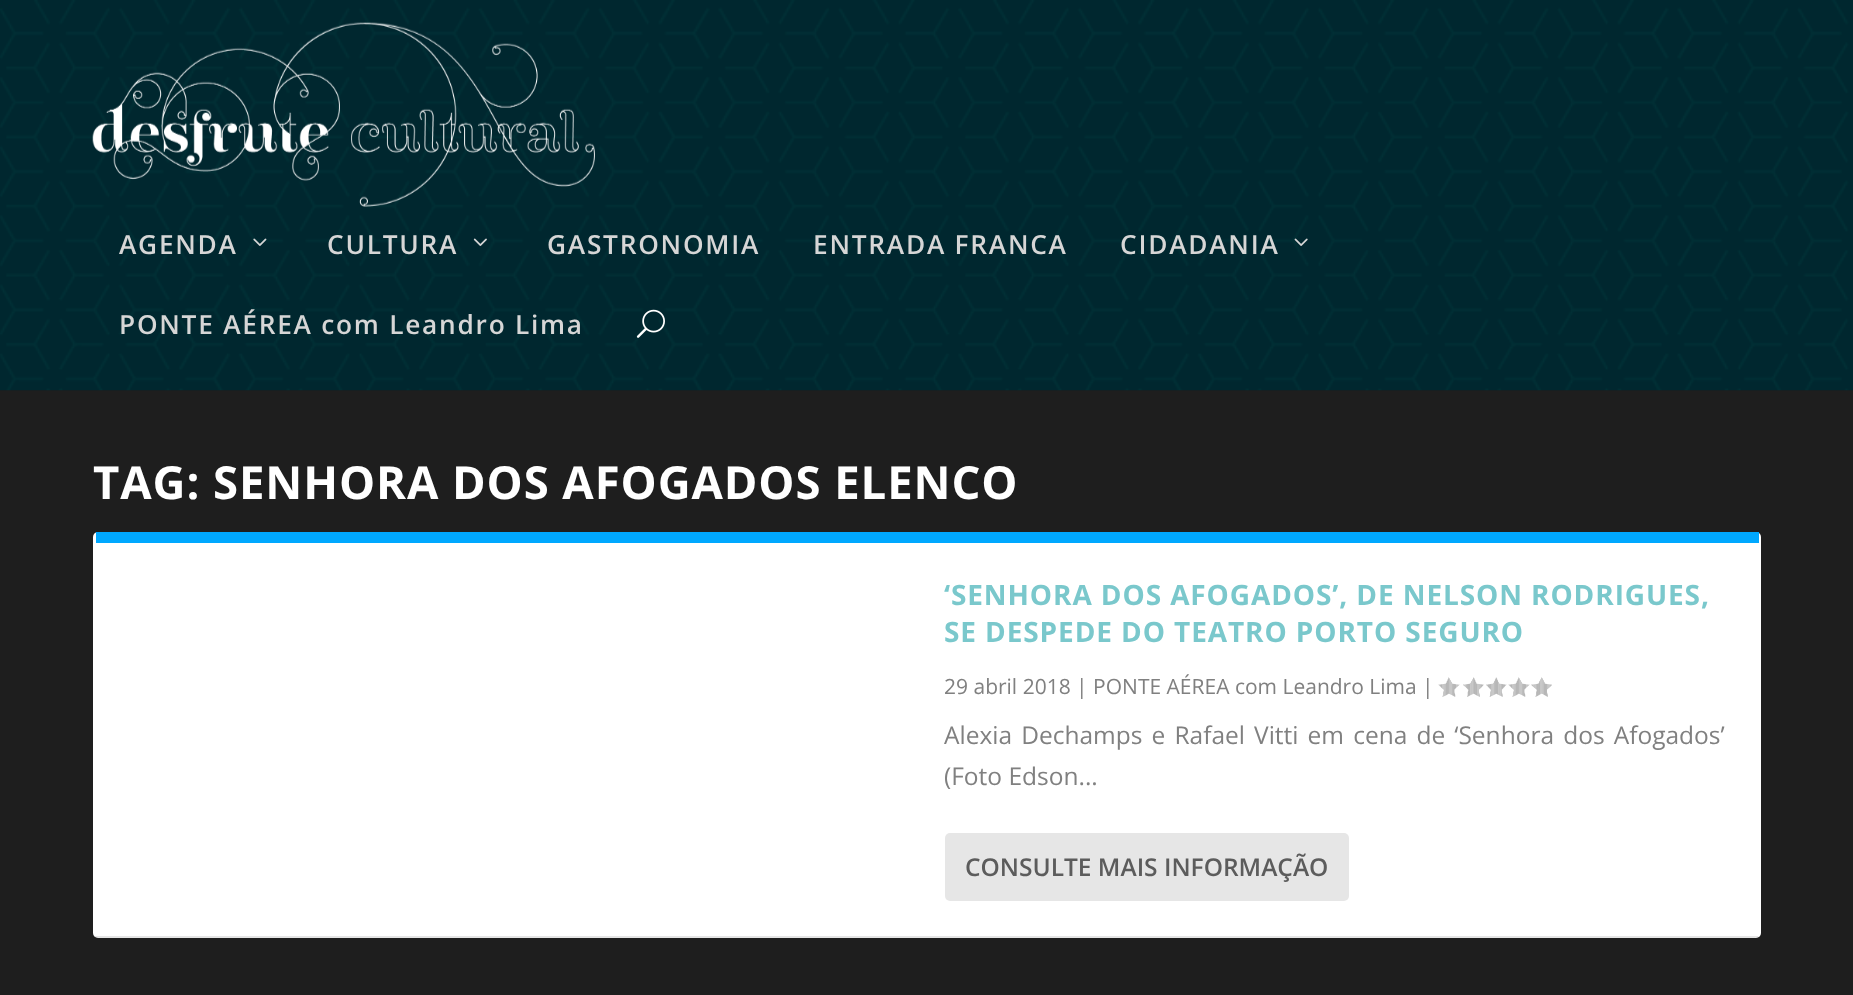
<?xml version="1.0" encoding="UTF-8"?>
<svg xmlns="http://www.w3.org/2000/svg" width="1853" height="995">
    <rect width="100%" height="100%" fill="#1E1E1E"/>
    <image x="0" y="0" width="1853" height="391" href="img_01.png"/>
    <image x="92" y="22" width="503" height="185" href="img_02.png"/>
    <text x="119" y="254" font-family="Open Sans" font-size="26.25" font-weight="600" letter-spacing="1.75" fill="#D6D6D6">AGENDA</text>
    <image x="253" y="238" width="14" height="8" href="img_03.png"/>
    <text x="327" y="254" font-family="Open Sans" font-size="26.25" font-weight="600" letter-spacing="1.75" fill="#D6D6D6">CULTURA</text>
    <image x="473" y="238" width="14" height="8" href="img_04.png"/>
    <text x="547" y="254" font-family="Open Sans" font-size="26.25" font-weight="600" letter-spacing="1.75" fill="#D6D6D6">GASTRONOMIA</text>
    <text x="813" y="254" font-family="Open Sans" font-size="26.25" font-weight="600" letter-spacing="1.75" fill="#D6D6D6">ENTRADA FRANCA</text>
    <text x="1120" y="254" font-family="Open Sans" font-size="26.25" font-weight="600" letter-spacing="1.75" fill="#D6D6D6">CIDADANIA</text>
    <image x="1294" y="238" width="14" height="8" href="img_05.png"/>
    <text x="119" y="334" font-family="Open Sans" font-size="26.25" font-weight="600" letter-spacing="1.75" fill="#D6D6D6">PONTE AÉREA com Leandro Lima</text>
    <image x="636" y="309" width="29" height="29" href="img_06.png"/>
    <text x="93" y="499" font-family="Open Sans" font-size="45.5" font-weight="700" letter-spacing="0.9" fill="#FFFFFF">TAG: SENHORA DOS AFOGADOS ELENCO</text>
    <rect x="93" y="532" width="1668" height="406" rx="5" fill="#FFFFFF"/>
    <rect x="96" y="532" width="1663" height="11" fill="#00A8FF"/>
    <path d="M 98 938 H 1755 C 1757 938 1758 937 1759 936 H 94 C 95 937 96 938 98 938 Z" fill="#000000" fill-opacity="0.1"/>
    <text font-family="Open Sans" font-size="28" font-weight="700" letter-spacing="0.9" fill="#7AC8CC">
        <tspan x="944" y="605">‘SENHORA DOS AFOGADOS’, DE NELSON RODRIGUES,</tspan>
        <tspan x="944" y="642">SE DESPEDE DO TEATRO PORTO SEGURO</tspan>
    </text>
    <text x="944" y="694" font-family="Open Sans" font-size="21" fill="#808080">29 abril 2018 | PONTE AÉREA com Leandro Lima |</text>
    <image x="1438" y="677" width="22" height="20" href="img_07.png"/>
    <image x="1463" y="677" width="21" height="20" href="img_08.png"/>
    <image x="1486" y="677" width="21" height="20" href="img_09.png"/>
    <image x="1508" y="677" width="22" height="20" href="img_07.png"/>
    <image x="1531" y="677" width="21" height="20" href="img_10.png"/>
    <text font-family="Open Sans" font-size="24.5" fill="#808080">
        <tspan x="944" y="744" word-spacing="2.75">Alexia Dechamps e Rafael Vitti em cena de ‘Senhora dos Afogados’</tspan>
        <tspan x="944" y="785">(Foto Edson...</tspan>
    </text>
    <rect x="945" y="833" width="404" height="68" rx="5" fill="#E6E6E6"/>
    <text x="965" y="876" font-family="Open Sans" font-size="24.5" font-weight="600" fill="#5C5C5C">CONSULTE MAIS INFORMAÇÃO</text>
</svg>
